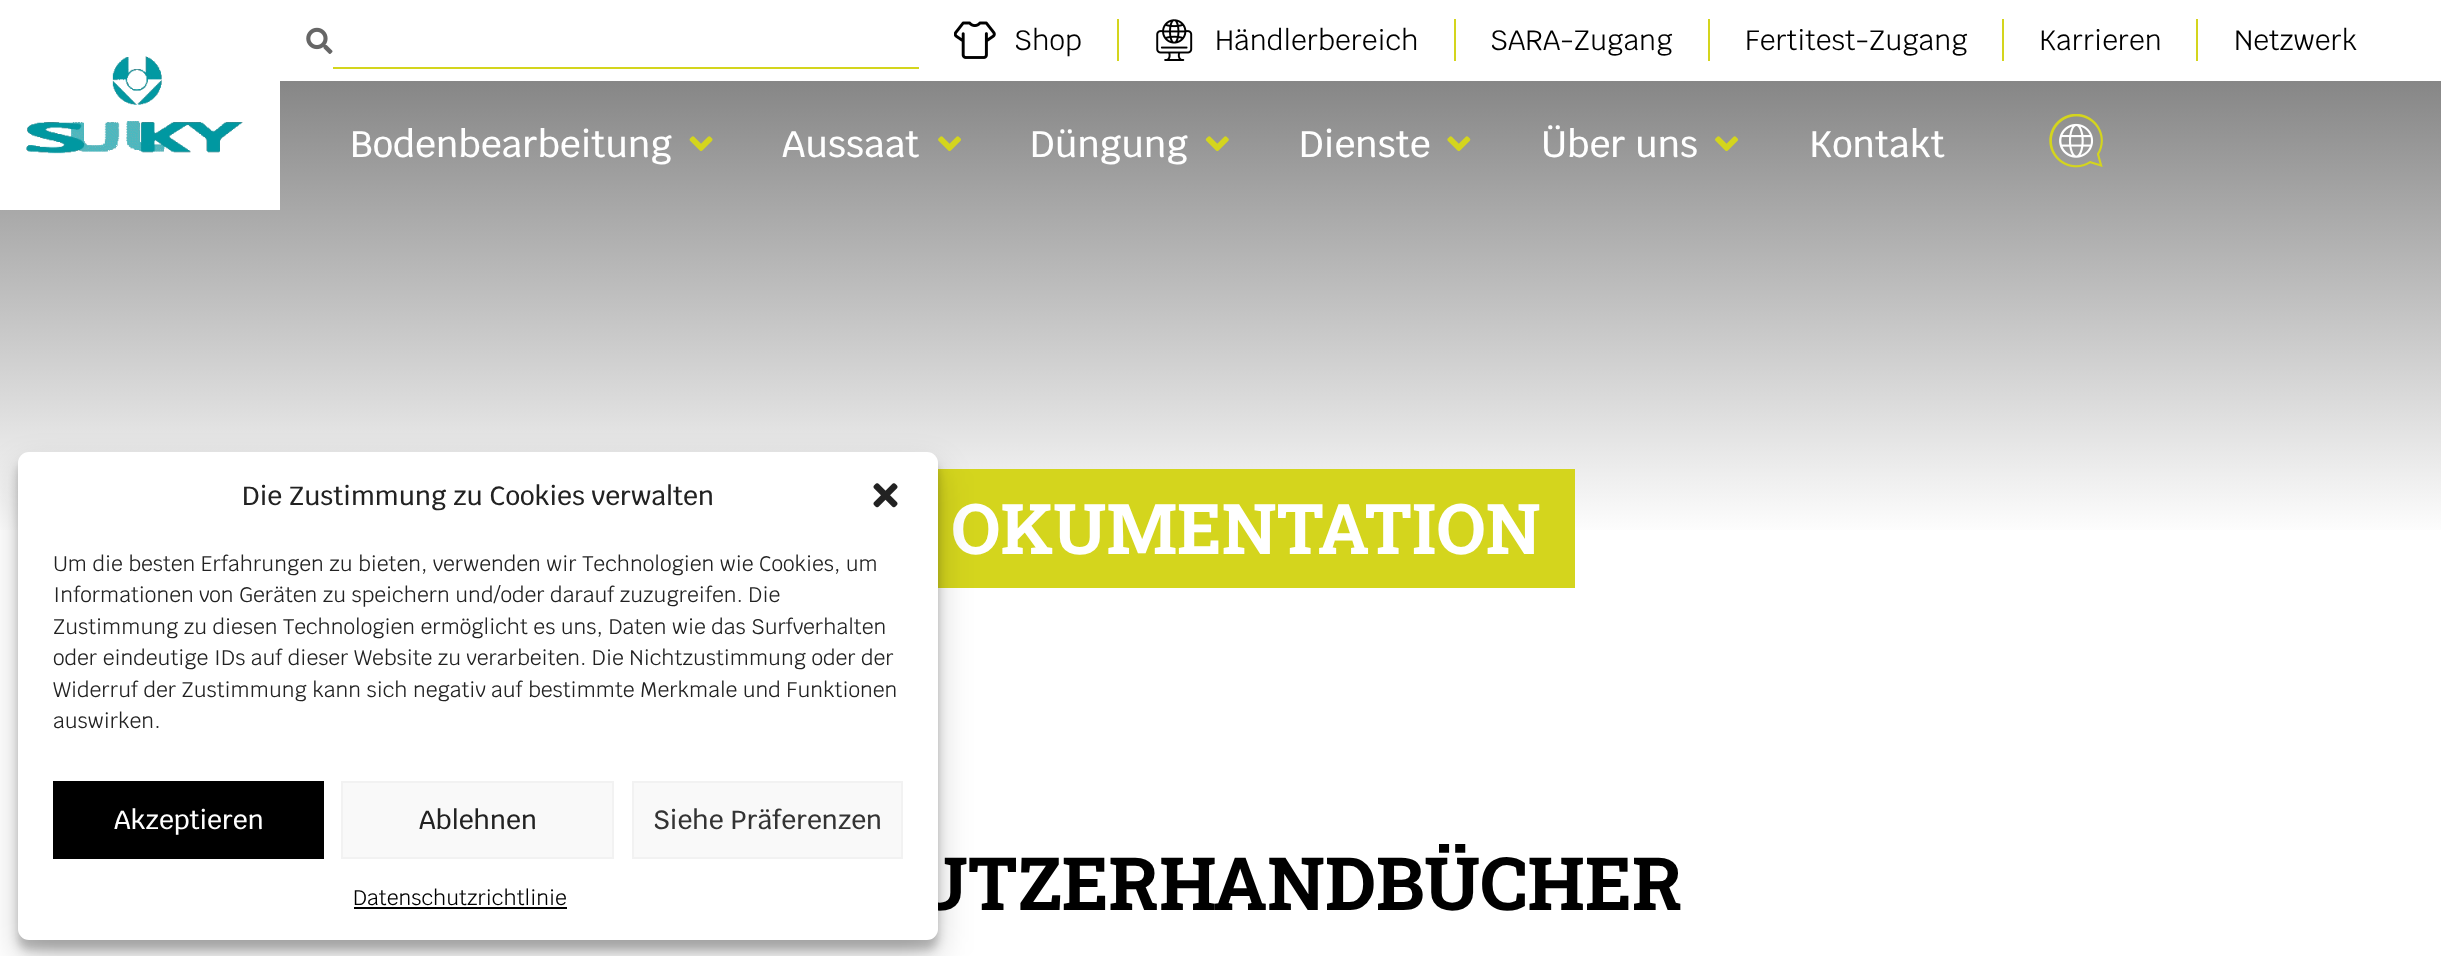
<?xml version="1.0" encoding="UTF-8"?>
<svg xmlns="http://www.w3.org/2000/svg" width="2441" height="956">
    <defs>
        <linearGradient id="g1" gradientUnits="userSpaceOnUse" x1="1221" y1="0" x2="1221" y2="539"><stop offset="0" stop-color="#717171"/><stop offset="1" stop-color="#FFFFFF"/></linearGradient>
        <filter id="blur1" x="-50%" y="-200%" width="200%" height="500%"><feGaussianBlur stdDeviation="5"/></filter>
        <filter id="blur2" x="-50%" y="-200%" width="200%" height="500%"><feGaussianBlur stdDeviation="17.5"/></filter>
    </defs>
    <rect width="100%" height="100%" fill="#FFFFFF"/>
    <rect x="0" y="81" width="2441" height="449" fill="url(#g1)"/>
    <rect x="0" y="81" width="280" height="129" fill="#FFFFFF"/>
    <image x="26" y="56" width="217" height="98" href="img_01.png"/>
    <image x="306" y="27" width="27" height="27" href="img_02.png"/>
    <rect x="333" y="67" width="586" height="2" fill="#D4D51D"/>
    <image x="954" y="21" width="42" height="38" href="img_03.png"/>
    <text x="1014" y="50" font-family="Krub" font-size="28" fill="#000000">Shop</text>
    <rect x="1117" y="19" width="2" height="42" fill="#D4D51D"/>
    <image x="1156" y="19" width="37" height="42" href="img_04.png"/>
    <text x="1215" y="50" font-family="Krub" font-size="28" fill="#000000">Händlerbereich</text>
    <rect x="1454" y="19" width="2" height="42" fill="#D4D51D"/>
    <text x="1490" y="50" font-family="Krub" font-size="28" fill="#000000">SARA-Zugang</text>
    <rect x="1708" y="19" width="2" height="42" fill="#D4D51D"/>
    <text x="1745" y="50" font-family="Krub" font-size="28" fill="#000000">Fertitest-Zugang</text>
    <rect x="2002" y="19" width="2" height="42" fill="#D4D51D"/>
    <text x="2039" y="50" font-family="Krub" font-size="28" fill="#000000">Karrieren</text>
    <rect x="2196" y="19" width="2" height="42" fill="#D4D51D"/>
    <text x="2234" y="50" font-family="Krub" font-size="28" fill="#000000">Netzwerk</text>
    <text x="350" y="157" font-family="Krub" font-size="36.75" font-weight="500" fill="#FFFFFF">Bodenbearbeitung</text>
    <image x="689" y="136" width="24" height="16" href="img_05.png"/>
    <text x="782" y="157" font-family="Krub" font-size="36.75" font-weight="500" fill="#FFFFFF">Aussaat</text>
    <image x="938" y="136" width="23" height="16" href="img_06.png"/>
    <text x="1030" y="157" font-family="Krub" font-size="36.75" font-weight="500" fill="#FFFFFF">Düngung</text>
    <image x="1205" y="136" width="24" height="16" href="img_07.png"/>
    <text x="1299" y="157" font-family="Krub" font-size="36.75" font-weight="500" fill="#FFFFFF">Dienste</text>
    <image x="1447" y="136" width="24" height="16" href="img_08.png"/>
    <text x="1541" y="157" font-family="Krub" font-size="36.75" font-weight="500" fill="#FFFFFF">Über uns</text>
    <image x="1715" y="136" width="23" height="16" href="img_06.png"/>
    <text x="1809" y="157" font-family="Krub" font-size="36.75" font-weight="500" fill="#FFFFFF">Kontakt</text>
    <image x="2049" y="114" width="54" height="54" href="img_09.png"/>
    <rect x="938" y="469" width="637" height="119" fill="#D4D51D"/>
    <text x="951" y="554" font-family="Roboto Slab" font-size="70" font-weight="700" fill="#FFFFFF">OKUMENTATION</text>
    <rect x="18" y="462" width="920" height="488" rx="11" fill="#000000" fill-opacity="0.23" filter="url(#blur1)"/>
    <rect x="18" y="469" width="920" height="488" rx="11" fill="#000000" fill-opacity="0.19" filter="url(#blur2)"/>
    <text x="912" y="910" font-family="Roboto Slab" font-size="73.5" font-weight="700" fill="#000000">UTZERHANDBÜCHER</text>
    <rect x="18" y="452" width="920" height="488" rx="11" fill="#FFFFFF"/>
    <text x="242" y="505" font-family="Krub" font-size="26.25" font-weight="500" fill="#222222">Die Zustimmung zu Cookies verwalten</text>
    <image x="873" y="483" width="25" height="25" href="img_10.png"/>
    <text font-family="Krub" font-size="21" fill="#222222">
        <tspan x="53" y="571">Um die besten Erfahrungen zu bieten, verwenden wir Technologien wie Cookies, um</tspan>
        <tspan x="53" y="602">Informationen von Geräten zu speichern und/oder darauf zuzugreifen. Die</tspan>
        <tspan x="53" y="634">Zustimmung zu diesen Technologien ermöglicht es uns, Daten wie das Surfverhalten</tspan>
        <tspan x="53" y="665">oder eindeutige IDs auf dieser Website zu verarbeiten. Die Nichtzustimmung oder der</tspan>
        <tspan x="53" y="697">Widerruf der Zustimmung kann sich negativ auf bestimmte Merkmale und Funktionen</tspan>
        <tspan x="53" y="728">auswirken.</tspan>
    </text>
    <rect x="53" y="781" width="271" height="78" fill="#000000"/>
    <text x="114" y="829" font-family="Krub" font-size="26.25" font-weight="500" fill="#FFFFFF">Akzeptieren</text>
    <rect x="342" y="782" width="271" height="76" fill="#F9F9F9" stroke="#F2F2F2" stroke-width="2"/>
    <text x="419" y="829" font-family="Krub" font-size="26.25" font-weight="500" fill="#222222">Ablehnen</text>
    <rect x="633" y="782" width="269" height="76" fill="#F9F9F9" stroke="#F2F2F2" stroke-width="2"/>
    <text x="653" y="829" font-family="Krub" font-size="26.25" font-weight="500" fill="#333333">Siehe Präferenzen</text>
    <text x="353" y="905" font-family="Krub" font-size="21" fill="#000000">Datenschutzrichtlinie</text>
    <rect x="354" y="907" width="213" height="2" fill="#000000"/>
</svg>
